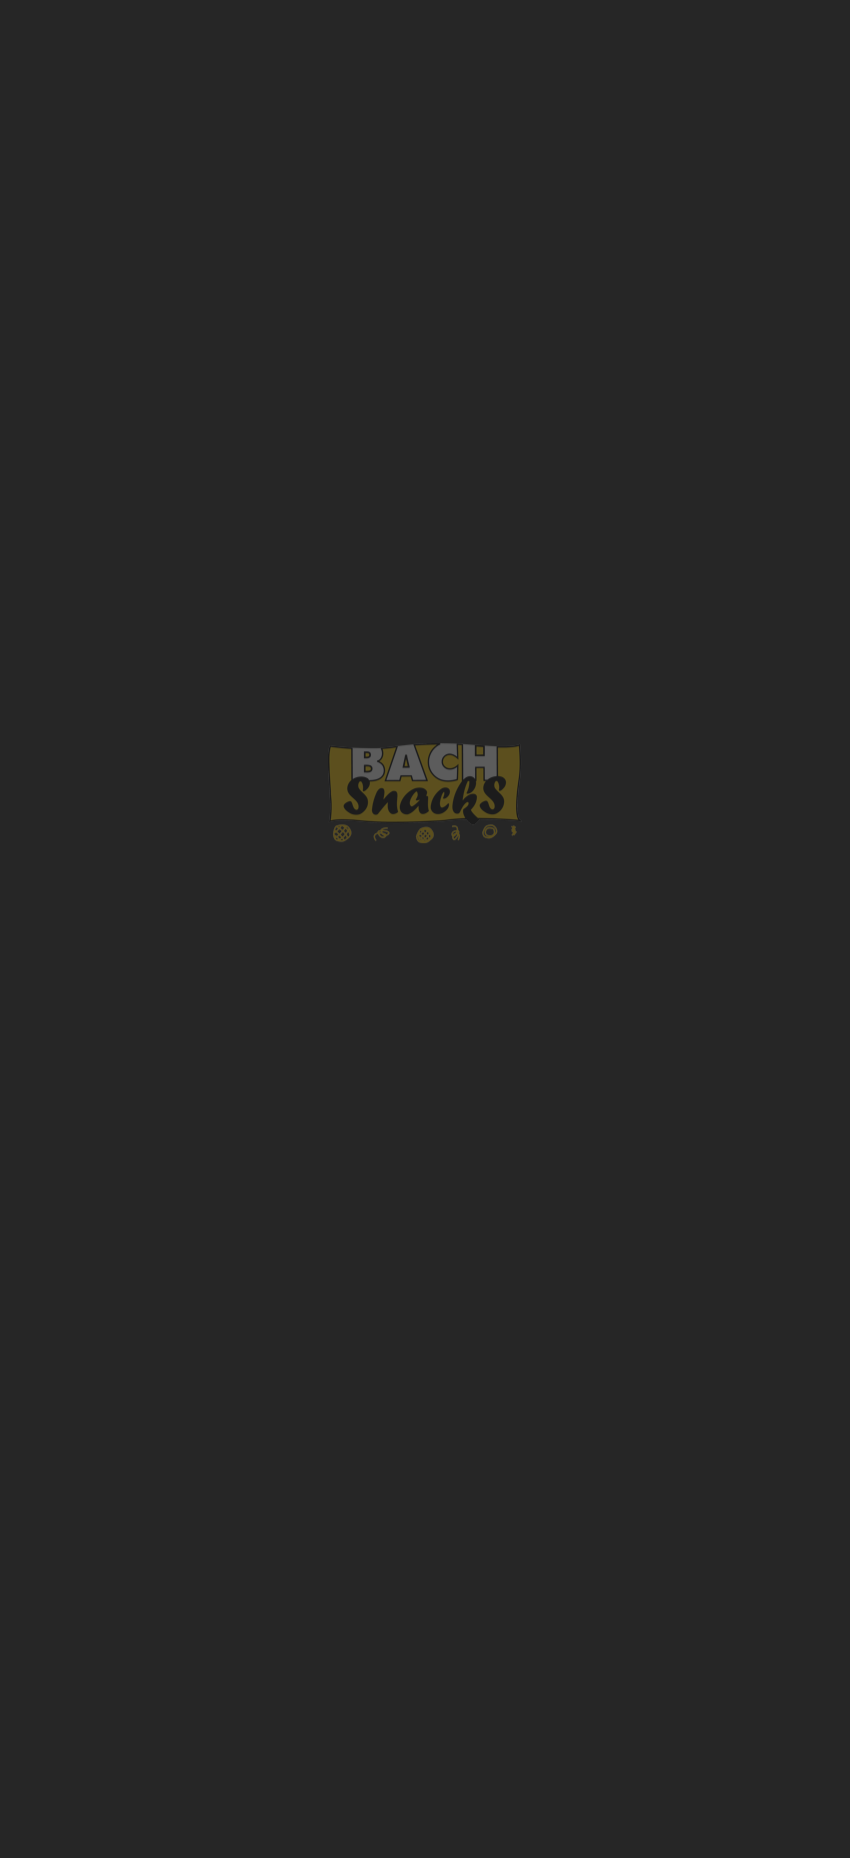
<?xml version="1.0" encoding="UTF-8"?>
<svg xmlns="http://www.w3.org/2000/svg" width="850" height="1858">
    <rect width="100%" height="100%" fill="#262626"/>
    <image x="328" y="743" width="194" height="101" href="img_01.png"/>
</svg>
